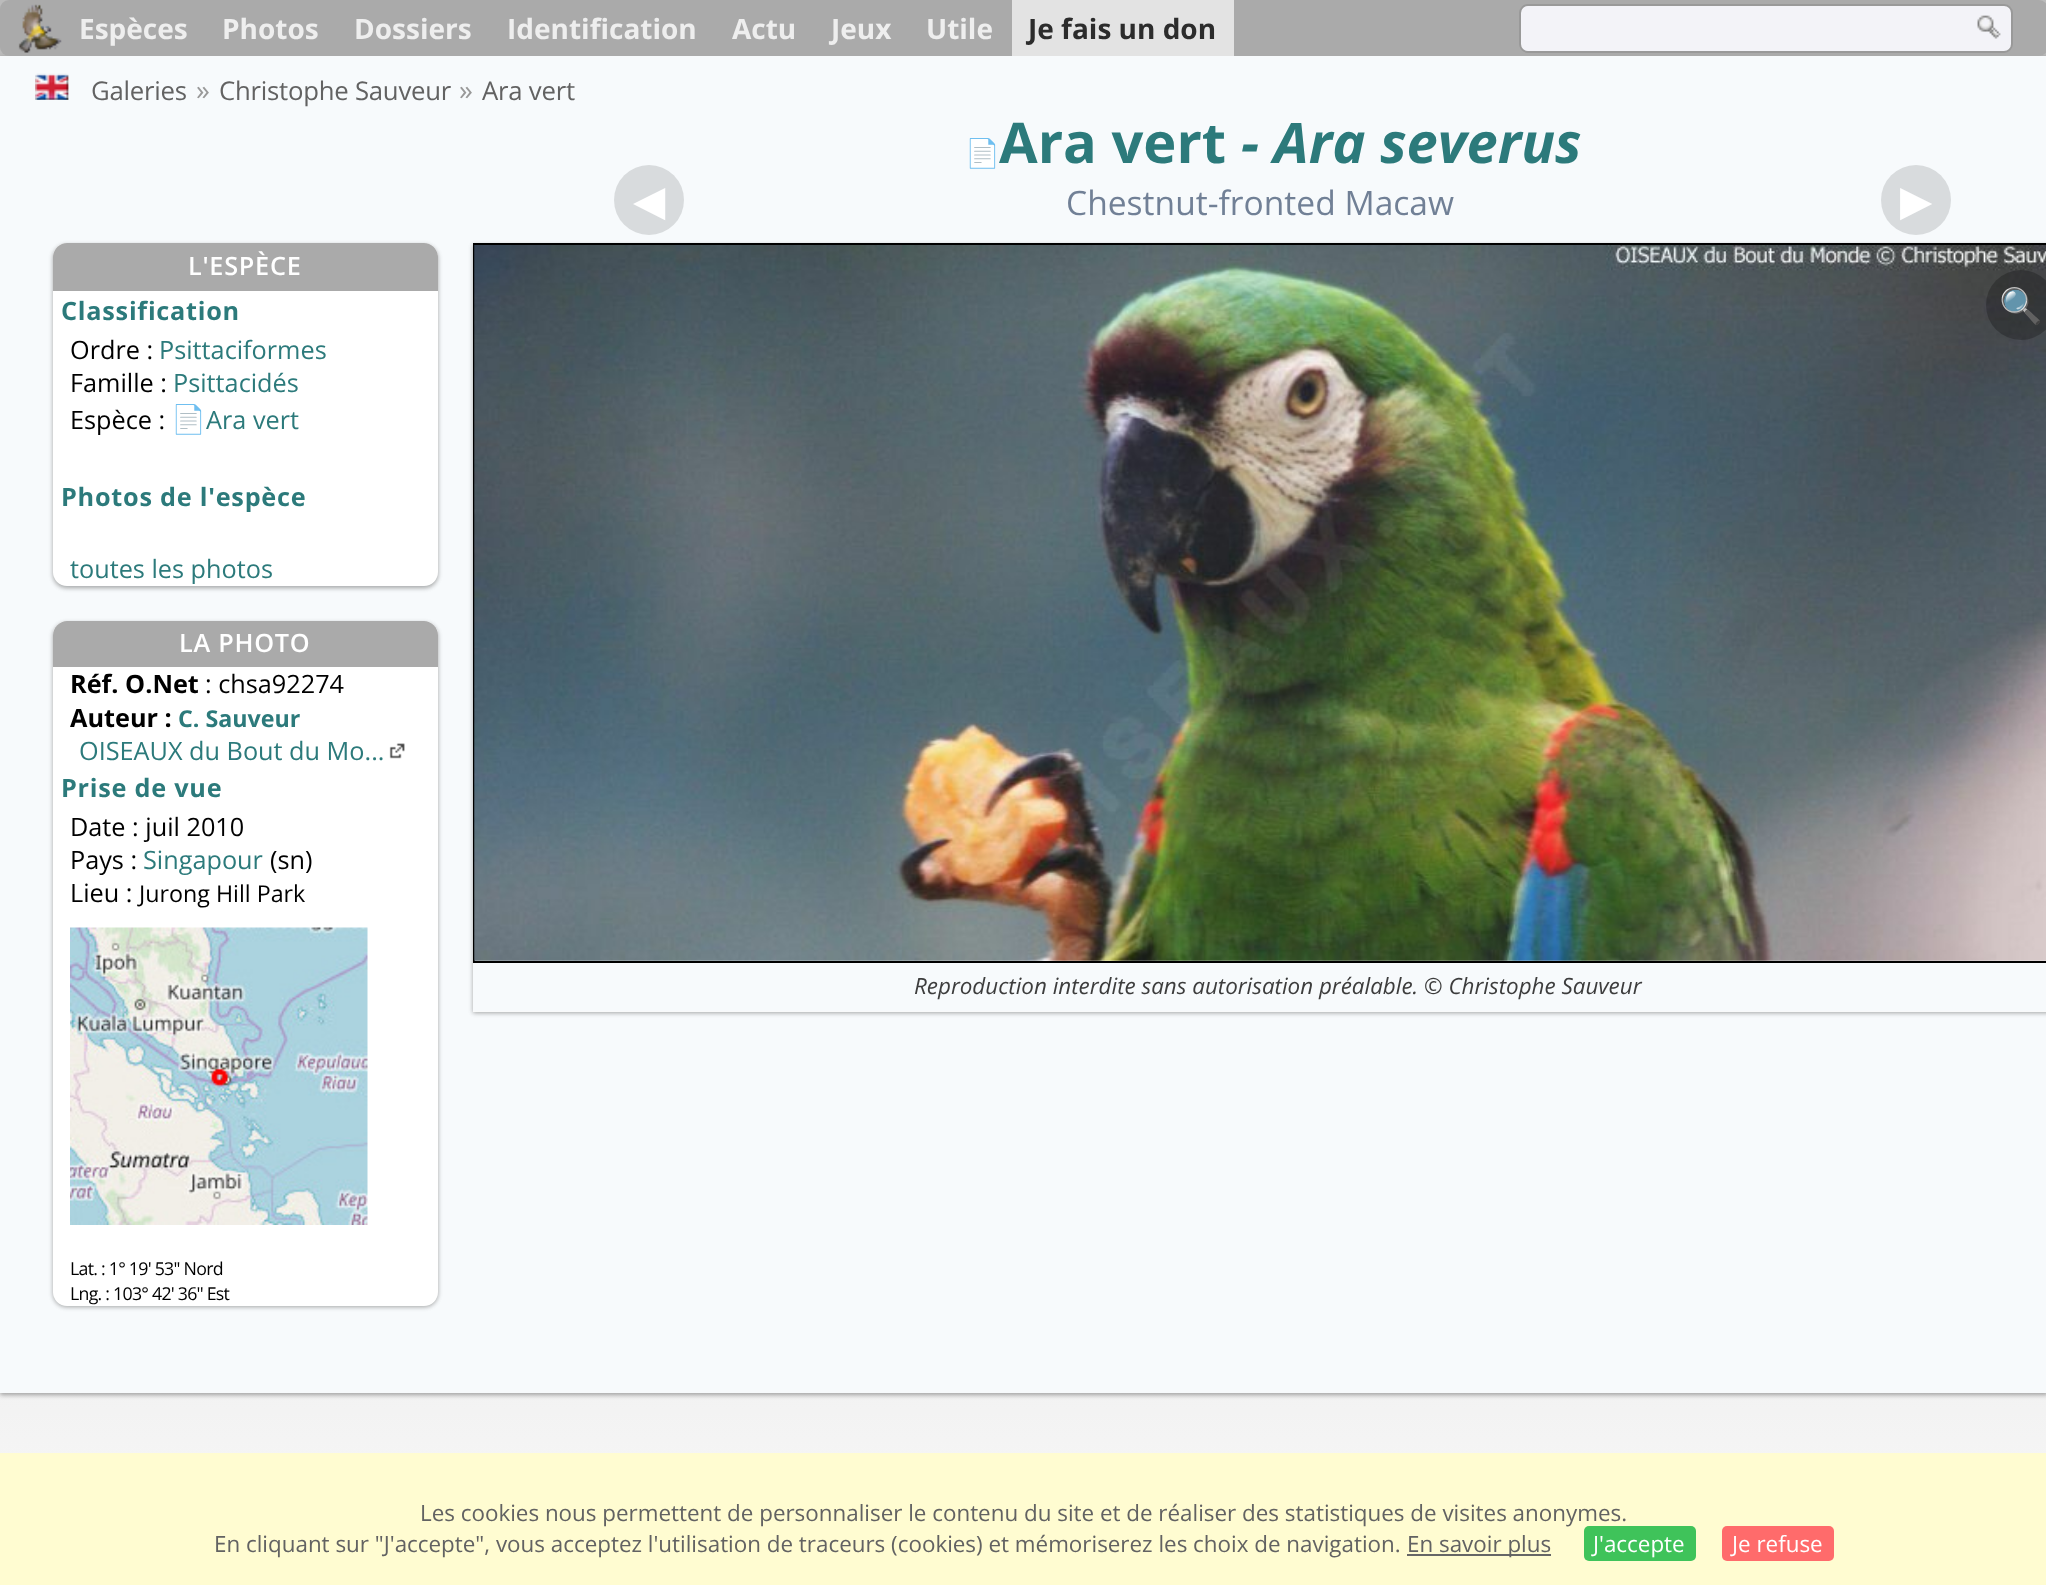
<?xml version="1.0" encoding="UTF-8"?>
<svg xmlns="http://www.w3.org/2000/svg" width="2046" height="1585">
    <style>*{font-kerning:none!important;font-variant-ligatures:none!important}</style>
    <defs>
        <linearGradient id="g1" gradientUnits="userSpaceOnUse" x1="1024" y1="0" x2="1024" y2="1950"><stop offset="0" stop-color="#BBBBBB"/><stop offset="0.22" stop-color="#BBBBBB"/><stop offset="0.4" stop-color="#DDDDDD"/><stop offset="0.9" stop-color="#FFFFFF"/><stop offset="1" stop-color="#FFFFFF"/></linearGradient>
        <filter id="blur1" x="-50%" y="-200%" width="200%" height="500%"><feGaussianBlur stdDeviation="2"/></filter>
        <filter id="blur2" x="-50%" y="-200%" width="200%" height="500%"><feGaussianBlur stdDeviation="2.5"/></filter>
        <clipPath id="clip1"><path d="M 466 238 H 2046 V 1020 H 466 Z M 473 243 H 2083 V 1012 H 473 Z" clip-rule="evenodd"/></clipPath>
        <clipPath id="clip2"><path d="M 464 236 H 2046 V 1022 H 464 Z M 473 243 H 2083 V 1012 H 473 Z" clip-rule="evenodd"/></clipPath>
    </defs>
    <rect width="100%" height="100%" fill="#FFFFFF"/>
    <rect x="0" y="0" width="2046" height="1453" fill="url(#g1)"/>
    <rect x="0" y="58" width="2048" height="1337" fill="#000000" fill-opacity="0.24" filter="url(#blur1)"/>
    <rect x="0" y="58" width="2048" height="1337" fill="#000000" fill-opacity="0.12" filter="url(#blur2)"/>
    <rect x="0" y="0" width="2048" height="56" rx="9" fill="#AAAAAA"/>
    <image x="18" y="4" width="44" height="49" href="img_01.png"/>
    <text x="79" y="39" font-family="Open Sans" font-size="28" font-weight="700" fill="#EEEEEE">Espèces</text>
    <text x="222" y="39" font-family="Open Sans" font-size="28" font-weight="700" fill="#EEEEEE">Photos</text>
    <text x="354" y="39" font-family="Open Sans" font-size="28" font-weight="700" fill="#EEEEEE">Dossiers</text>
    <text x="507" y="39" font-family="Open Sans" font-size="28" font-weight="700" fill="#EEEEEE">Identification</text>
    <text x="732" y="39" font-family="Open Sans" font-size="28" font-weight="700" fill="#EEEEEE">Actu</text>
    <text x="831" y="39" font-family="Open Sans" font-size="28" font-weight="700" fill="#EEEEEE">Jeux</text>
    <text x="926" y="39" font-family="Open Sans" font-size="28" font-weight="700" fill="#EEEEEE">Utile</text>
    <rect x="1012" y="0" width="222" height="56" fill="#E3E3E3"/>
    <text x="1028" y="39" font-family="Open Sans" font-size="28" font-weight="700" fill="#2C2C2C">Je fais un don</text>
    <rect x="1520" y="5" width="492" height="47" rx="8" fill="#F3F3F8" stroke="#999999" stroke-width="2"/>
    <image x="1977" y="15" width="24" height="24" href="img_02.png"/>
    <rect x="0" y="56" width="2046" height="1337" fill="#F7FAFC"/>
    <image x="35" y="73" width="34" height="27" href="img_03.png"/>
    <text x="91" y="100" font-family="Open Sans" font-size="25.75" letter-spacing="-0.25" fill="#626262">Galeries</text>
    <text x="196" y="100" font-family="Open Sans" font-size="28" fill="#999999">»</text>
    <text x="219" y="100" font-family="Open Sans" font-size="25.75" letter-spacing="-0.25" fill="#626262">Christophe Sauveur</text>
    <text x="459" y="100" font-family="Open Sans" font-size="28" fill="#999999">»</text>
    <text x="482" y="100" font-family="Open Sans" font-size="25.75" letter-spacing="-0.25" fill="#626262">Ara vert</text>
    <text x="965" y="163" font-family="Noto Color Emoji" font-size="28" font-weight="700" fill="#2C7A7B">📄</text>
    <text x="999" y="163" font-family="Open Sans" font-size="56" font-weight="700" fill="#2C7A7B">Ara vert</text>
    <text x="1241" y="163" font-family="Open Sans" font-size="56" font-weight="700" font-style="italic" fill="#2C7A7B">- Ara severus</text>
    <text x="1066" y="215" font-family="Open Sans" font-size="33.6" fill="#718096">Chestnut-fronted Macaw</text>
    <rect x="53" y="245" width="385" height="343" rx="14" fill="#000000" fill-opacity="0.24" filter="url(#blur1)"/>
    <rect x="53" y="245" width="385" height="343" rx="14" fill="#000000" fill-opacity="0.12" filter="url(#blur2)"/>
    <rect x="53" y="243" width="385" height="343" rx="14" fill="#FFFFFF"/>
    <path d="M 67 243 H 424 C 431.5 243 438 249.5 438 257 V 291 H 53 V 257 C 53 249.5 59.5 243 67 243 Z" fill="#AAAAAA"/>
    <text x="188" y="275" font-family="Open Sans" font-size="25.25" font-weight="600" letter-spacing="0.75" fill="#FFFFFF">L'ESPÈCE</text>
    <text x="61" y="320" font-family="Open Sans" font-size="25.25" font-weight="700" letter-spacing="0.75" fill="#2C7A7B">Classification</text>
    <text x="70" y="359" font-family="Open Sans" font-size="25.25" fill="#000000">Ordre :</text>
    <text x="159" y="359" font-family="Open Sans" font-size="25.25" fill="#2C7A7B">Psittaciformes</text>
    <text x="70" y="392" font-family="Open Sans" font-size="25.25" fill="#000000">Famille :</text>
    <text x="173" y="392" font-family="Open Sans" font-size="25.25" fill="#2C7A7B">Psittacidés</text>
    <text x="70" y="429" font-family="Open Sans" font-size="25.25" fill="#000000">Espèce :</text>
    <text x="171" y="429" font-family="Noto Color Emoji" font-size="28" fill="#2C7A7B">📄</text>
    <text x="206" y="429" font-family="Open Sans" font-size="25.25" fill="#2C7A7B">Ara vert</text>
    <text x="61" y="506" font-family="Open Sans" font-size="25.25" font-weight="700" letter-spacing="0.75" fill="#2C7A7B">Photos de l'espèce</text>
    <text x="70" y="578" font-family="Open Sans" font-size="25.25" fill="#2C7A7B">toutes les photos</text>
    <rect x="53" y="623" width="385" height="684" rx="14" fill="#000000" fill-opacity="0.24" filter="url(#blur1)"/>
    <rect x="53" y="623" width="385" height="684" rx="14" fill="#000000" fill-opacity="0.12" filter="url(#blur2)"/>
    <rect x="53" y="621" width="385" height="685" rx="14" fill="#FFFFFF"/>
    <path d="M 67 621 H 424 C 431.5 621 438 627.5 438 635 V 667 H 53 V 635 C 53 627.5 59.5 621 67 621 Z" fill="#AAAAAA"/>
    <text x="179" y="652" font-family="Open Sans" font-size="25.25" font-weight="600" letter-spacing="0.75" fill="#FFFFFF">LA PHOTO</text>
    <text x="70" y="693" font-family="Open Sans" font-size="25.25" font-weight="700" fill="#000000">Réf. O.Net</text>
    <text x="205" y="693" font-family="Open Sans" font-size="25.25" fill="#000000">: chsa92274</text>
    <text x="70" y="727" font-family="Open Sans" font-size="25.25" font-weight="700" fill="#000000">Auteur :</text>
    <text x="178" y="727" font-family="Open Sans" font-size="23.25" font-weight="700" fill="#2C7A7B">C. Sauveur</text>
    <text x="79" y="760" font-family="Open Sans" font-size="25.25" fill="#2C7A7B">OISEAUX du Bout du Mo...</text>
    <image x="389" y="743" width="16" height="16" href="img_04.png"/>
    <text x="61" y="797" font-family="Open Sans" font-size="25.25" font-weight="700" letter-spacing="0.75" fill="#2C7A7B">Prise de vue</text>
    <text font-family="Open Sans" font-size="25.25" fill="#000000">
        <tspan x="70" y="836">Date : juil 2010</tspan>
        <tspan x="70" y="869">Pays :</tspan>
    </text>
    <text x="143" y="869" font-family="Open Sans" font-size="25.25" fill="#2C7A7B">Singapour</text>
    <text x="270" y="869" font-family="Open Sans" font-size="25.25" fill="#000000">(sn)</text>
    <text x="70" y="902" font-family="Open Sans" font-size="25.25" fill="#000000">Lieu :</text>
    <text x="139" y="902" font-family="Open Sans" font-size="23.25" fill="#000000">Jurong Hill Park</text>
    <image x="70" y="927" width="298" height="298" href="img_05.png"/>
    <text font-family="Open Sans" font-size="17.75" letter-spacing="-0.75" fill="#000000">
        <tspan x="70" y="1275">Lat. : 1° 19' 53'' Nord</tspan>
        <tspan x="70" y="1300">Lng. : 103° 42' 36'' Est</tspan>
    </text>
    <circle cx="649" cy="200" r="35" fill="#D8DBDD"/>
    <text x="633" y="215" font-family="DejaVu Sans" font-size="42" fill="#FFFFFF">◀</text>
    <circle cx="1916" cy="200" r="35" fill="#D8DBDD"/>
    <text x="1900" y="215" font-family="DejaVu Sans" font-size="42" fill="#FFFFFF">▶</text>
    <g clip-path="url(#clip1)">
        <rect x="473" y="245" width="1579" height="768" fill="#000000" fill-opacity="0.24" filter="url(#blur1)"/>
    </g>
    <g clip-path="url(#clip2)">
        <rect x="473" y="245" width="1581" height="768" fill="#000000" fill-opacity="0.12" filter="url(#blur2)"/>
    </g>
    <rect x="474" y="244" width="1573" height="718" fill="none" stroke="#000000" stroke-width="2"/>
    <image x="474" y="245" width="1572" height="716" href="img_06.png"/>
    <circle cx="2021" cy="305" r="35" fill="#000000" fill-opacity="0.24"/>
    <text x="1999" y="318" font-family="Noto Color Emoji" font-size="35" fill="#858788">🔍</text>
    <rect x="473" y="1011" width="1573" height="1" fill="#FAFAFA" fill-opacity="0.75"/>
    <text x="914" y="994" font-family="Open Sans" font-size="22.4" font-style="italic" fill="#3D3D3D">Reproduction interdite sans autorisation préalable. © Christophe Sauveur</text>
    <rect x="0" y="1453" width="2046" height="132" fill="#FFFCD1"/>
    <text x="420" y="1521" font-family="Open Sans" font-size="22.4" fill="#626262">Les cookies nous permettent de personnaliser le contenu du site et de réaliser des statistiques de visites anonymes.</text>
    <text x="214" y="1552" font-family="Open Sans" font-size="22.4" fill="#626262">En cliquant sur "J'accepte", vous acceptez l'utilisation de traceurs (cookies) et mémoriserez les choix de navigation.</text>
    <rect x="1407" y="1554" width="144" height="2" fill="#666666"/>
    <text x="1407" y="1552" font-family="Open Sans" font-size="22.4" fill="#626262">En savoir plus</text>
    <rect x="1584" y="1526" width="112" height="35" rx="5" fill="#3FC35A"/>
    <text x="1593" y="1552" font-family="Open Sans" font-size="22.4" fill="#FFFFFF">J'accepte</text>
    <rect x="1722" y="1526" width="112" height="35" rx="5" fill="#FF6B6B"/>
    <text x="1732" y="1552" font-family="Open Sans" font-size="22.4" fill="#FFFFFF">Je refuse</text>
</svg>
